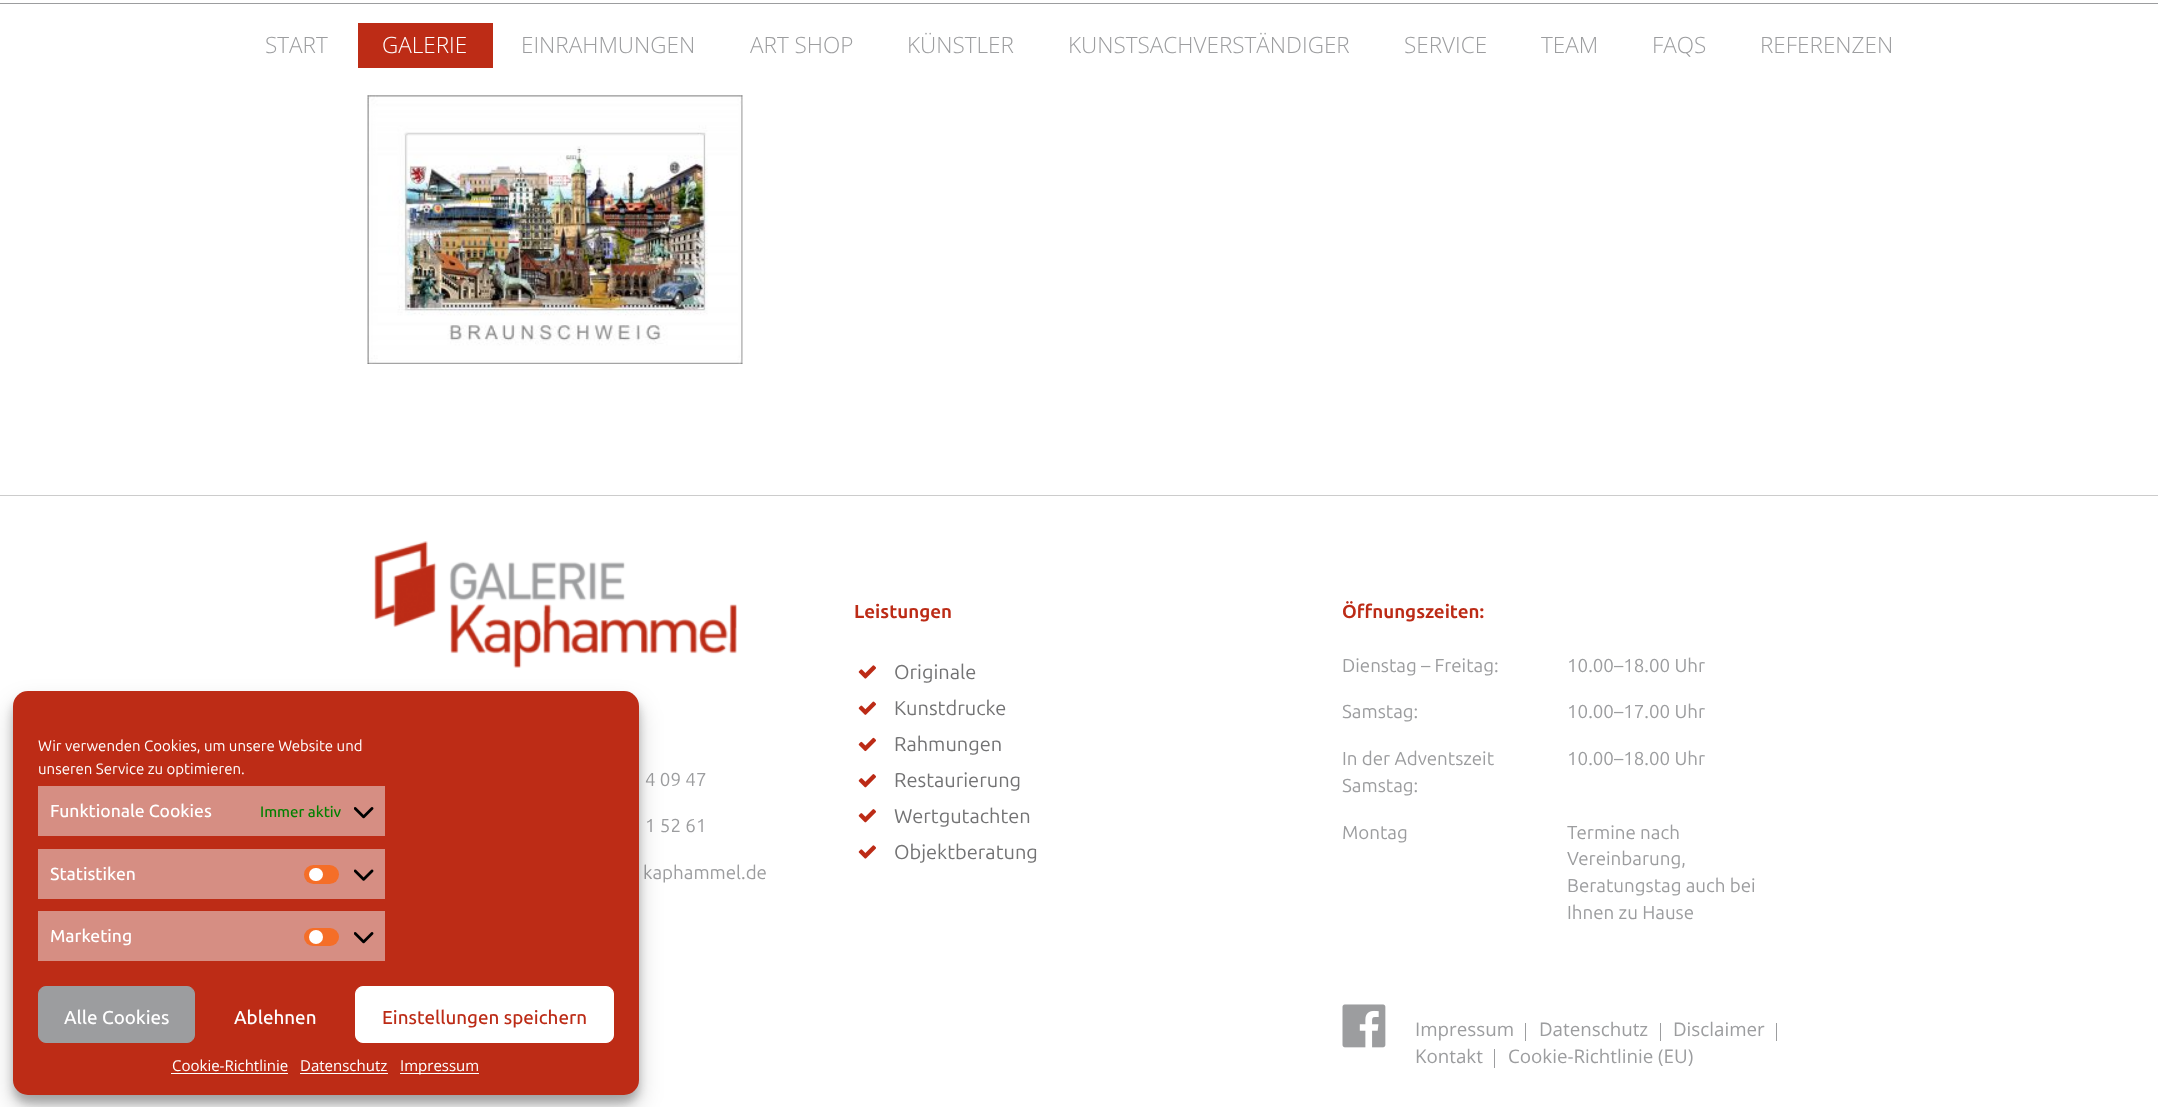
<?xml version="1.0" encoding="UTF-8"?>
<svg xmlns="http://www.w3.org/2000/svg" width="2158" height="1107">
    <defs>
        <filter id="blur1" x="-50%" y="-200%" width="200%" height="500%"><feGaussianBlur stdDeviation="4"/></filter>
        <filter id="blur2" x="-50%" y="-200%" width="200%" height="500%"><feGaussianBlur stdDeviation="12.5"/></filter>
    </defs>
    <rect width="100%" height="100%" fill="#FFFFFF"/>
    <rect x="0" y="3" width="2158" height="1" fill="#9C9D9F"/>
    <text x="265" y="53" font-family="Open Sans" font-size="22.5" font-weight="300" fill="#9C9D9F">START</text>
    <rect x="358" y="23" width="135" height="45" fill="#BD2C16"/>
    <text x="382" y="53" font-family="Open Sans" font-size="22.5" font-weight="300" fill="#FFFFFF">GALERIE</text>
    <text x="521" y="53" font-family="Open Sans" font-size="22.5" font-weight="300" fill="#9C9D9F">EINRAHMUNGEN</text>
    <text x="750" y="53" font-family="Open Sans" font-size="22.5" font-weight="300" fill="#9C9D9F">ART SHOP</text>
    <text x="907" y="53" font-family="Open Sans" font-size="22.5" font-weight="300" fill="#9C9D9F">KÜNSTLER</text>
    <text x="1068" y="53" font-family="Open Sans" font-size="22.5" font-weight="300" fill="#9C9D9F">KUNSTSACHVERSTÄNDIGER</text>
    <text x="1404" y="53" font-family="Open Sans" font-size="22.5" font-weight="300" fill="#9C9D9F">SERVICE</text>
    <text x="1541" y="53" font-family="Open Sans" font-size="22.5" font-weight="300" fill="#9C9D9F">TEAM</text>
    <text x="1652" y="53" font-family="Open Sans" font-size="22.5" font-weight="300" fill="#9C9D9F">FAQS</text>
    <text x="1760" y="53" font-family="Open Sans" font-size="22.5" font-weight="300" fill="#9C9D9F">REFERENZEN</text>
    <image x="367" y="95" width="376" height="269" href="img_01.png"/>
    <rect x="0" y="495" width="2158" height="1" fill="#CCCCCC"/>
    <image x="374" y="541" width="363" height="127" href="img_02.png"/>
    <text x="645" y="786" font-family="Ubuntu" font-size="18.75" fill="#9C9D9F">4 09 47</text>
    <text x="645" y="832" font-family="Ubuntu" font-size="18.75" fill="#9C9D9F">1 52 61</text>
    <text x="643" y="879" font-family="Ubuntu" font-size="18.75" fill="#9C9D9F">kaphammel.de</text>
    <text x="854" y="618" font-family="Ubuntu" font-size="18.75" font-weight="700" fill="#BC2B16">Leistungen</text>
    <image x="858" y="665" width="18" height="14" href="img_03.png"/>
    <text x="894" y="679" font-family="Ubuntu" font-size="20" fill="#737374">Originale</text>
    <image x="858" y="701" width="18" height="14" href="img_04.png"/>
    <text x="894" y="715" font-family="Ubuntu" font-size="20" fill="#737374">Kunstdrucke</text>
    <image x="858" y="737" width="18" height="15" href="img_05.png"/>
    <text x="894" y="751" font-family="Ubuntu" font-size="20" fill="#737374">Rahmungen</text>
    <image x="858" y="774" width="18" height="14" href="img_06.png"/>
    <text x="894" y="787" font-family="Ubuntu" font-size="20" fill="#737374">Restaurierung</text>
    <image x="858" y="809" width="18" height="14" href="img_06.png"/>
    <text x="894" y="823" font-family="Ubuntu" font-size="20" fill="#737374">Wertgutachten</text>
    <image x="858" y="845" width="18" height="14" href="img_03.png"/>
    <text x="894" y="859" font-family="Ubuntu" font-size="20" fill="#737374">Objektberatung</text>
    <text x="1342" y="618" font-family="Ubuntu" font-size="18.75" font-weight="700" fill="#BC2B16">Öffnungszeiten:</text>
    <text x="1342" y="672" font-family="Ubuntu" font-size="18.75" fill="#9C9D9F">Dienstag – Freitag:</text>
    <text x="1567" y="672" font-family="Ubuntu" font-size="18.75" fill="#9C9D9F">10.00–18.00 Uhr</text>
    <text x="1342" y="718" font-family="Ubuntu" font-size="18.75" fill="#9C9D9F">Samstag:</text>
    <text x="1567" y="718" font-family="Ubuntu" font-size="18.75" fill="#9C9D9F">10.00–17.00 Uhr</text>
    <text font-family="Ubuntu" font-size="18.75" fill="#9C9D9F">
        <tspan x="1342" y="765">In der Adventszeit</tspan>
        <tspan x="1342" y="792">Samstag:</tspan>
    </text>
    <text x="1567" y="765" font-family="Ubuntu" font-size="18.75" fill="#9C9D9F">10.00–18.00 Uhr</text>
    <text x="1342" y="839" font-family="Ubuntu" font-size="18.75" fill="#9C9D9F">Montag</text>
    <text font-family="Ubuntu" font-size="18.75" fill="#9C9D9F">
        <tspan x="1567" y="839">Termine nach</tspan>
        <tspan x="1567" y="865">Vereinbarung,</tspan>
        <tspan x="1567" y="892">Beratungstag auch bei</tspan>
        <tspan x="1567" y="919">Ihnen zu Hause</tspan>
    </text>
    <image x="1342" y="1004" width="44" height="44" href="img_07.png"/>
    <text x="1415" y="1036" font-family="Open Sans" font-size="18.75" fill="#9C9D9F">Impressum</text>
    <rect x="1525" y="1023" width="1" height="18" fill="#9C9D9F"/>
    <text x="1539" y="1036" font-family="Open Sans" font-size="18.75" fill="#9C9D9F">Datenschutz</text>
    <rect x="1660" y="1023" width="1" height="18" fill="#9C9D9F"/>
    <text x="1673" y="1036" font-family="Open Sans" font-size="18.75" fill="#9C9D9F">Disclaimer</text>
    <rect x="1776" y="1023" width="1" height="18" fill="#9C9D9F"/>
    <text x="1415" y="1063" font-family="Open Sans" font-size="18.75" fill="#9C9D9F">Kontakt</text>
    <rect x="1494" y="1049" width="1" height="19" fill="#9C9D9F"/>
    <text x="1508" y="1063" font-family="Open Sans" font-size="18.75" fill="#9C9D9F">Cookie-Richtlinie (EU)</text>
    <rect x="13" y="699" width="626" height="404" rx="15" fill="#000000" fill-opacity="0.23" filter="url(#blur1)"/>
    <rect x="13" y="704" width="626" height="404" rx="15" fill="#000000" fill-opacity="0.19" filter="url(#blur2)"/>
    <rect x="13" y="691" width="626" height="404" rx="15" fill="#BD2C16"/>
    <text font-family="Ubuntu" font-size="15" fill="#FFFFFF">
        <tspan x="38" y="751">Wir verwenden Cookies, um unsere Website und</tspan>
        <tspan x="38" y="774">unseren Service zu optimieren.</tspan>
    </text>
    <rect x="38" y="786" width="347" height="50" fill="#D68E83"/>
    <text x="50" y="817" font-family="Ubuntu" font-size="17.5" font-weight="500" fill="#FFFFFF">Funktionale Cookies</text>
    <text x="260" y="817" font-family="Ubuntu" font-size="15" font-weight="500" fill="#008000">Immer aktiv</text>
    <image x="354" y="807" width="20" height="12" href="img_08.png"/>
    <rect x="38" y="849" width="347" height="50" fill="#D68E83"/>
    <text x="50" y="880" font-family="Ubuntu" font-size="17.5" font-weight="500" fill="#FFFFFF">Statistiken</text>
    <rect x="304" y="865" width="35" height="19" rx="9.5" fill="#F56E28"/>
    <rect x="309" y="868" width="14" height="13" rx="6.5" fill="#FFFFFF"/>
    <image x="354" y="869" width="20" height="12" href="img_09.png"/>
    <rect x="38" y="911" width="347" height="50" fill="#D68E83"/>
    <text x="50" y="942" font-family="Ubuntu" font-size="17.5" font-weight="500" fill="#FFFFFF">Marketing</text>
    <rect x="304" y="928" width="35" height="18" rx="9" fill="#F56E28"/>
    <circle cx="316" cy="937" r="7" fill="#FFFFFF"/>
    <image x="354" y="932" width="20" height="12" href="img_08.png"/>
    <rect x="38.5" y="986.5" width="156" height="56" rx="7.5" fill="#9C9D9F" stroke="#9C9D9F"/>
    <text x="64" y="1024" font-family="Ubuntu" font-size="18.75" font-weight="500" fill="#FFFFFF">Alle Cookies</text>
    <text x="234" y="1024" font-family="Ubuntu" font-size="18.75" font-weight="500" fill="#FFFFFF">Ablehnen</text>
    <rect x="355.5" y="986.5" width="258" height="56" rx="7.5" fill="#FFFFFF" stroke="#FFFFFF"/>
    <text x="382" y="1024" font-family="Ubuntu" font-size="18.75" font-weight="500" fill="#BC2B16">Einstellungen speichern</text>
    <text x="172" y="1071" font-family="Open Sans" font-size="15" fill="#FFFFFF">Cookie-Richtlinie</text>
    <rect x="171" y="1073" width="117" height="1" fill="#FFFFFF"/>
    <text x="300" y="1071" font-family="Open Sans" font-size="15" fill="#FFFFFF">Datenschutz</text>
    <rect x="300" y="1073" width="88" height="1" fill="#FFFFFF"/>
    <rect x="400" y="1073" width="79" height="1" fill="#FFFFFF"/>
    <text x="400" y="1071" font-family="Open Sans" font-size="15" fill="#FFFFFF">Impressum</text>
</svg>
